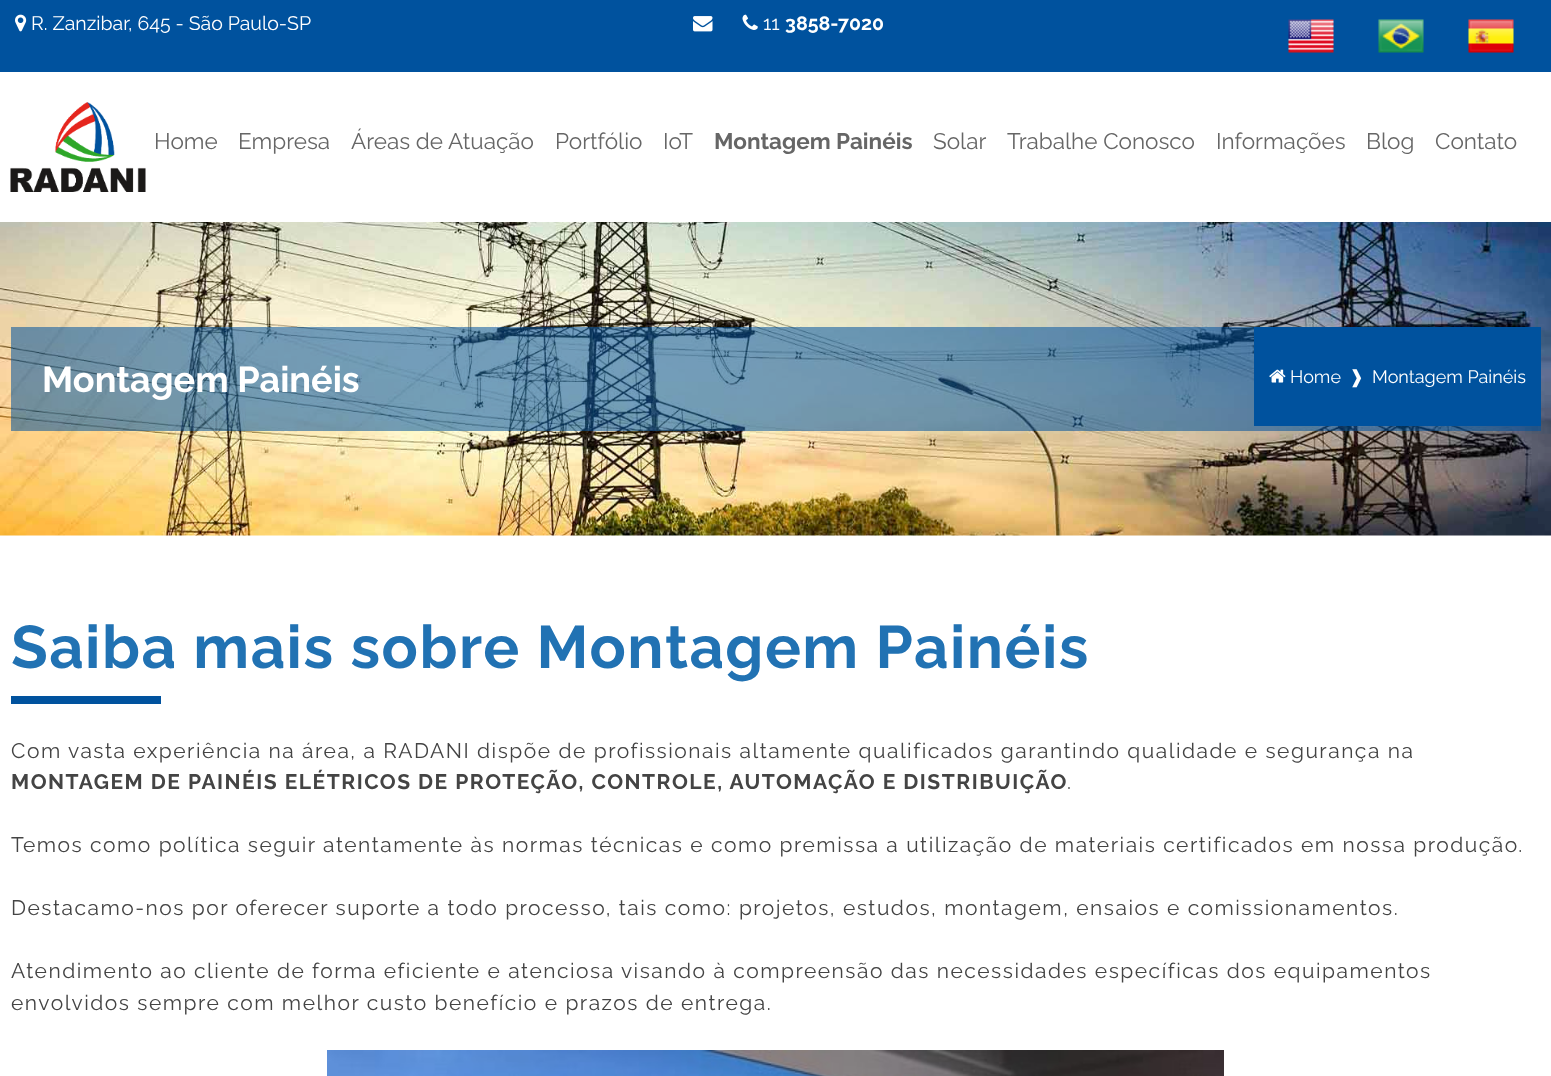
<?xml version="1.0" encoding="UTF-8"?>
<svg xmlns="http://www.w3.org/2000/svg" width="1551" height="1076">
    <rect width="100%" height="100%" fill="#FFFFFF"/>
    <rect x="0" y="0" width="1551" height="72" fill="#00529E"/>
    <image x="15" y="14" width="12" height="18" href="img_01.png"/>
    <text x="31" y="30" font-family="Raleway" font-size="19.5" fill="#FFFFFF">R. Zanzibar, 645 - São Paulo-SP</text>
    <image x="693" y="16" width="20" height="16" href="img_02.png"/>
    <image x="742" y="14" width="16" height="16" href="img_03.png"/>
    <text x="763" y="30" font-family="Raleway" font-size="19.5" fill="#FFFFFF">11</text>
    <text x="785" y="30" font-family="Raleway" font-size="19.5" font-weight="700" fill="#FFFFFF">3858-7020</text>
    <image x="1288" y="19" width="46" height="34" href="img_04.png"/>
    <image x="1378" y="19" width="46" height="34" href="img_05.png"/>
    <image x="1468" y="19" width="46" height="34" href="img_06.png"/>
    <image x="10" y="102" width="136" height="90" href="img_07.png"/>
    <text x="154" y="149" font-family="Raleway" font-size="22.5" fill="#666666">Home</text>
    <text x="238" y="149" font-family="Raleway" font-size="22.5" fill="#666666">Empresa</text>
    <text x="351" y="149" font-family="Raleway" font-size="22.5" fill="#666666">Áreas de Atuação</text>
    <text x="555" y="149" font-family="Raleway" font-size="22.5" fill="#666666">Portfólio</text>
    <text x="663" y="149" font-family="Raleway" font-size="22.5" fill="#666666">IoT</text>
    <text x="714" y="149" font-family="Raleway" font-size="22.5" font-weight="700" fill="#666666">Montagem Painéis</text>
    <text x="933" y="149" font-family="Raleway" font-size="22.5" fill="#666666">Solar</text>
    <text x="1007" y="149" font-family="Raleway" font-size="22.5" fill="#666666">Trabalhe Conosco</text>
    <text x="1216" y="149" font-family="Raleway" font-size="22.5" fill="#666666">Informações</text>
    <text x="1366" y="149" font-family="Raleway" font-size="22.5" fill="#666666">Blog</text>
    <text x="1435" y="149" font-family="Raleway" font-size="22.5" fill="#666666">Contato</text>
    <image x="0" y="222" width="1551" height="314" href="img_08.png"/>
    <rect x="11" y="327" width="1530" height="104" fill="#00529E" fill-opacity="0.55"/>
    <text x="42" y="392" font-family="Raleway" font-size="36" font-weight="700" fill="#FFFFFF">Montagem Painéis</text>
    <rect x="1254" y="327" width="287" height="99" fill="#00529E"/>
    <image x="1269" y="369" width="17" height="14" href="img_09.png"/>
    <text x="1290" y="383" font-family="Raleway" font-size="18" fill="#FFFFFF">Home</text>
    <text x="1349" y="383" font-family="DejaVu Sans" font-size="18" fill="#FFFFFF">❱</text>
    <text x="1372" y="383" font-family="Raleway" font-size="18" fill="#FFFFFF">Montagem Painéis</text>
    <text x="11" y="668" font-family="Raleway" font-size="60" font-weight="700" letter-spacing="1.5" fill="#2172B3">Saiba mais sobre Montagem Painéis</text>
    <rect x="11" y="696" width="150" height="8" fill="#00529E"/>
    <text x="11" y="758" font-family="Raleway" font-size="21" letter-spacing="1.5" fill="#444444">Com vasta experiência na área, a RADANI dispõe de profissionais altamente qualificados garantindo qualidade e segurança na</text>
    <text x="11" y="789" font-family="Raleway" font-size="21" font-weight="700" letter-spacing="1.5" fill="#444444">MONTAGEM DE PAINÉIS ELÉTRICOS DE PROTEÇÃO, CONTROLE, AUTOMAÇÃO E DISTRIBUIÇÃO</text>
    <text x="1067" y="789" font-family="Raleway" font-size="21" letter-spacing="1.5" fill="#444444">.</text>
    <text x="11" y="852" font-family="Raleway" font-size="21" letter-spacing="1.5" fill="#444444">Temos como política seguir atentamente às normas técnicas e como premissa a utilização de materiais certificados em nossa produção.</text>
    <text x="11" y="915" font-family="Raleway" font-size="21" letter-spacing="1.5" fill="#444444">Destacamo-nos por oferecer suporte a todo processo, tais como: projetos, estudos, montagem, ensaios e comissionamentos.</text>
    <text font-family="Raleway" font-size="21" letter-spacing="1.5" fill="#444444">
        <tspan x="11" y="978">Atendimento ao cliente de forma eficiente e atenciosa visando à compreensão das necessidades específicas dos equipamentos</tspan>
        <tspan x="11" y="1010">envolvidos sempre com melhor custo benefício e prazos de entrega.</tspan>
    </text>
    <image x="327" y="1050" width="897" height="26" href="img_10.png"/>
</svg>
